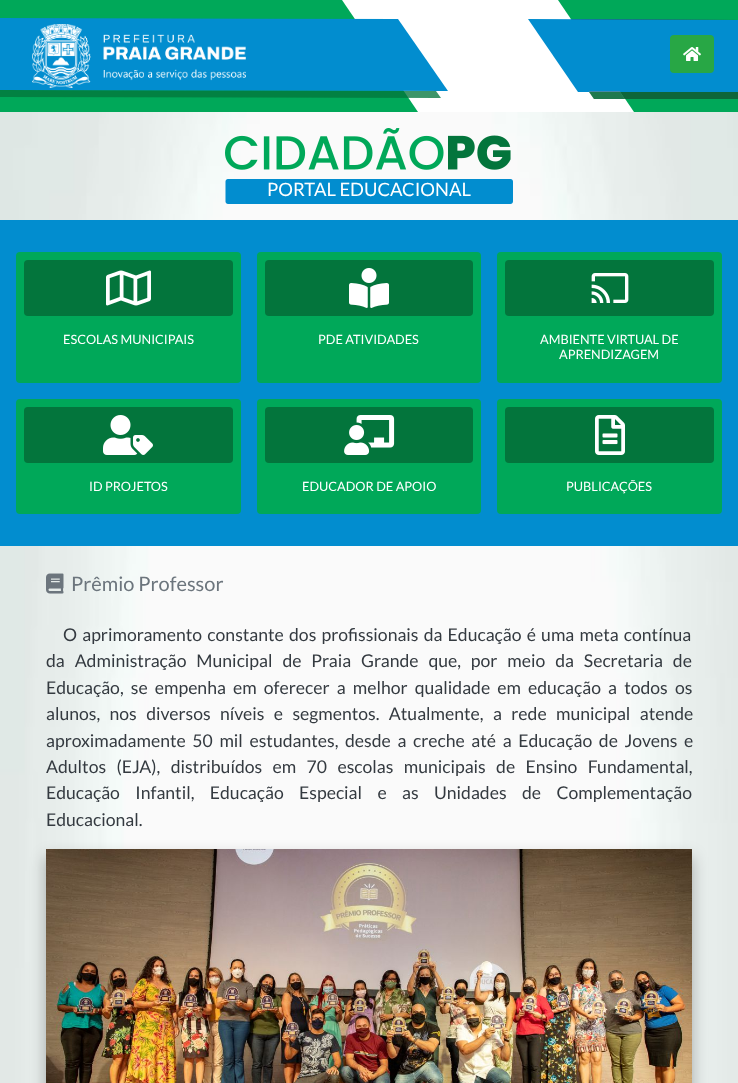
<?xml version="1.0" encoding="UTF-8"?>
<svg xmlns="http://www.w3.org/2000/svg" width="738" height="1083">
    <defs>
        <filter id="blur1" x="-50%" y="-200%" width="200%" height="500%"><feGaussianBlur stdDeviation="8"/></filter>
    </defs>
    <rect width="100%" height="100%" fill="#FFFFFF"/>
    <image x="0" y="112" width="738" height="971" href="img_01.png"/>
    <path d="M 342 0 L 418 112 H 0 V 0 Z" fill="#00A859"/>
    <path d="M 436 91 L 441 98 L 0 97 V 90 Z" fill="#03753C" fill-opacity="0.77"/>
    <path d="M 0 90 L 448 91 L 398 19 L 0 18 Z" fill="#028DCF"/>
    <image x="32" y="24" width="214" height="64" href="img_02.png"/>
    <path d="M 634 112 L 558 0 H 738 V 112 Z" fill="#00A859"/>
    <path d="M 625 99 L 571 19 L 738 20 V 99 Z" fill="#363636"/>
    <path d="M 738 20 L 528 19 L 578 92 H 738 Z" fill="#028DCF"/>
    <path d="M 624.5 99 H 594 L 589 91.5 H 620 Z" fill="#848688" fill-rule="evenodd"/>
    <path d="M 738 92 H 589 L 594 99 H 738 Z" fill="#03753C" fill-opacity="0.77" fill-rule="evenodd"/>
    <rect x="670" y="35" width="44" height="38" rx="4" fill="#28A745"/>
    <image x="683" y="47" width="18" height="14" href="img_03.png"/>
    <image x="225" y="128" width="288" height="76" href="img_04.png"/>
    <text x="267" y="196" font-family="Lato" font-size="18.4" fill="#FFFFFF">PORTAL EDUCACIONAL</text>
    <rect x="0" y="220" width="738" height="326" fill="#028DCF"/>
    <rect x="16" y="252" width="225" height="131" rx="4" fill="#00A859"/>
    <rect x="24" y="260" width="209" height="56" rx="4" fill="#03753C"/>
    <image x="106" y="270" width="45" height="36" href="img_05.png"/>
    <text x="63" y="344" font-family="Lato" font-size="12.75" fill="#FFFFFF">ESCOLAS MUNICIPAIS</text>
    <rect x="257" y="252" width="224" height="131" rx="4" fill="#00A859"/>
    <rect x="265" y="260" width="208" height="56" rx="4" fill="#03753C"/>
    <image x="349" y="268" width="40" height="40" href="img_06.png"/>
    <text x="318" y="344" font-family="Lato" font-size="12.75" fill="#FFFFFF">PDE ATIVIDADES</text>
    <rect x="497" y="252" width="225" height="131" rx="4" fill="#00A859"/>
    <rect x="505" y="260" width="209" height="56" rx="4" fill="#03753C"/>
    <image x="591" y="273" width="38" height="30" href="img_07.png"/>
    <text x="540" y="344" font-family="Lato" font-size="12.75" fill="#FFFFFF">AMBIENTE VIRTUAL DE</text>
    <text x="559" y="359" font-family="Lato" font-size="12.75" fill="#FFFFFF">APRENDIZAGEM</text>
    <rect x="16" y="399" width="225" height="115" rx="4" fill="#00A859"/>
    <rect x="24" y="407" width="209" height="56" rx="4" fill="#03753C"/>
    <image x="103" y="415" width="50" height="40" href="img_08.png"/>
    <text x="89" y="491" font-family="Lato" font-size="12.75" fill="#FFFFFF">ID PROJETOS</text>
    <rect x="257" y="399" width="224" height="115" rx="4" fill="#00A859"/>
    <rect x="265" y="407" width="208" height="56" rx="4" fill="#03753C"/>
    <image x="344" y="415" width="51" height="40" href="img_09.png"/>
    <text x="302" y="491" font-family="Lato" font-size="12.75" fill="#FFFFFF">EDUCADOR DE APOIO</text>
    <rect x="497" y="399" width="225" height="115" rx="4" fill="#00A859"/>
    <rect x="505" y="407" width="209" height="56" rx="4" fill="#03753C"/>
    <image x="595" y="415" width="30" height="40" href="img_10.png"/>
    <text x="566" y="491" font-family="Lato" font-size="12.75" fill="#FFFFFF">PUBLICAÇÕES</text>
    <image x="46" y="573" width="18" height="21" href="img_11.png"/>
    <text x="71" y="591" font-family="Lato" font-size="20" fill="#6C757D">Prêmio Professor</text>
    <text x="63" y="641" word-spacing="1.8" font-family="Lato" font-size="17.6" fill="#343A40">O aprimoramento constante dos profissionais da Educação é uma meta contínua</text>
    <text font-family="Lato" font-size="17.6" fill="#343A40">
        <tspan x="46" y="667" word-spacing="6.5">da Administração Municipal de Praia Grande que, por meio da Secretaria de</tspan>
        <tspan x="46" y="694" word-spacing="3.75">Educação, se empenha em oferecer a melhor qualidade em educação a todos os</tspan>
        <tspan x="46" y="720" word-spacing="6">alunos, nos diversos níveis e segmentos. Atualmente, a rede municipal atende</tspan>
        <tspan x="46" y="747" word-spacing="3.25">aproximadamente 50 mil estudantes, desde a creche até a Educação de Jovens e</tspan>
        <tspan x="46" y="773" word-spacing="7">Adultos (EJA), distribuídos em 70 escolas municipais de Ensino Fundamental,</tspan>
        <tspan x="46" y="799" word-spacing="12">Educação Infantil, Educação Especial e as Unidades de Complementação</tspan>
        <tspan x="46" y="826">Educacional.</tspan>
    </text>
    <rect x="46" y="857" width="646" height="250" fill="#000000" fill-opacity="0.3" filter="url(#blur1)"/>
    <image x="46" y="849" width="646" height="234" href="img_12.png"/>
</svg>
